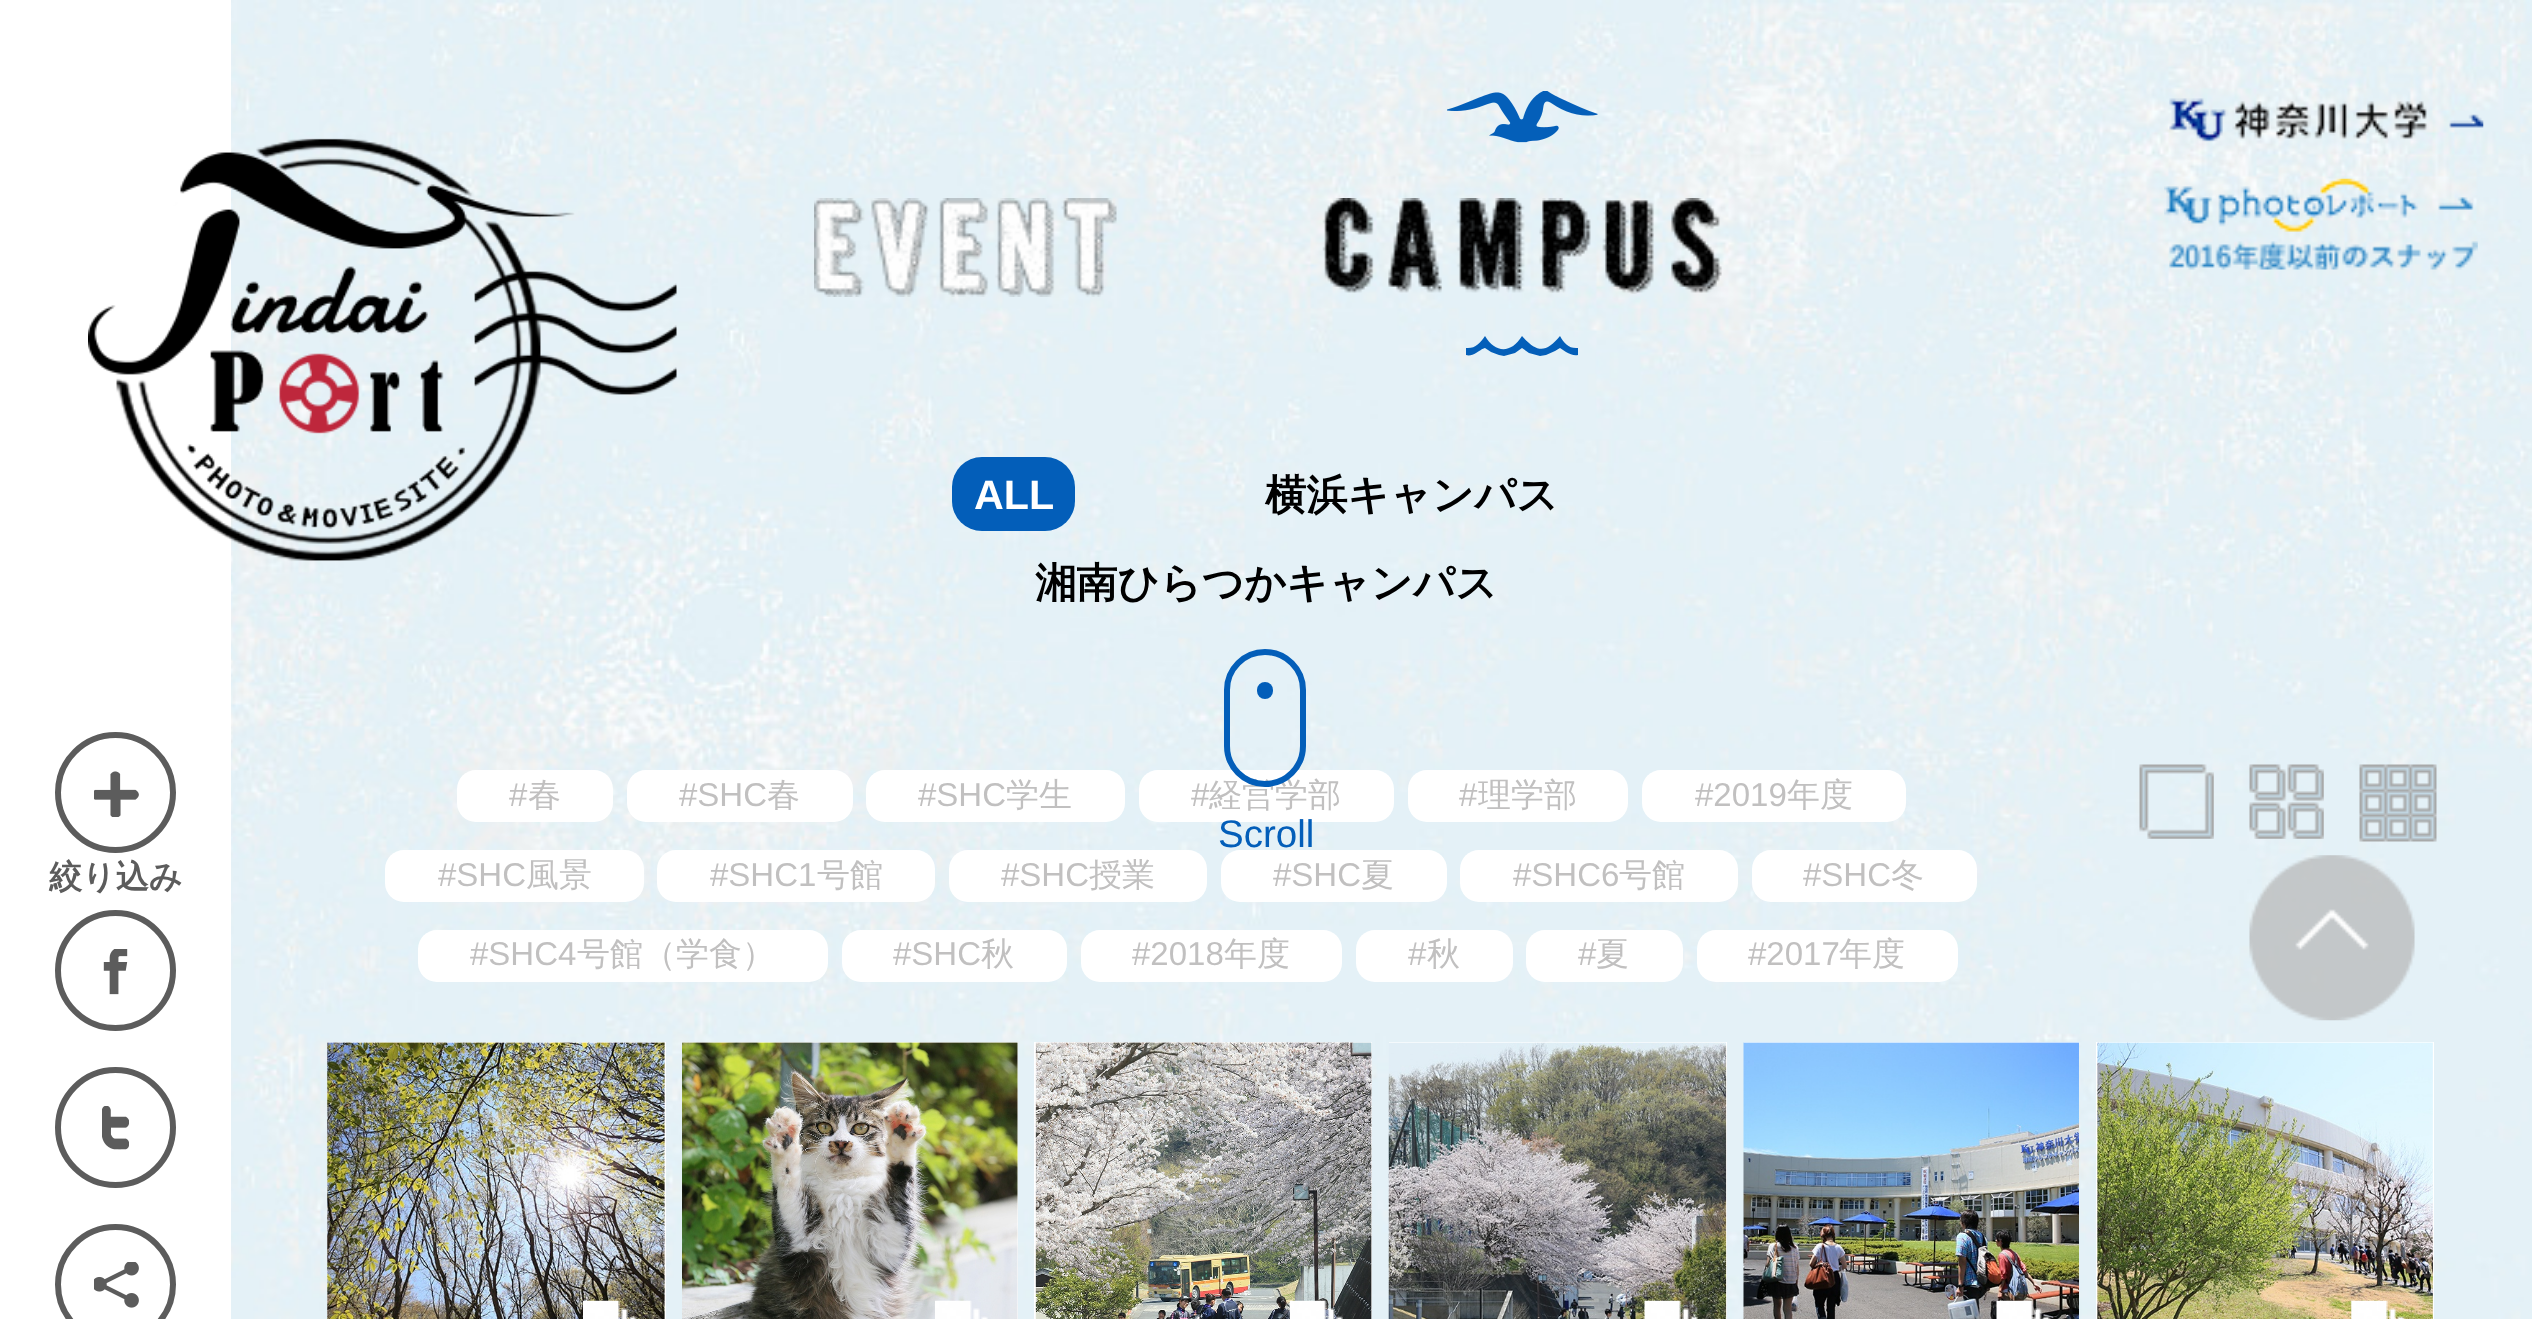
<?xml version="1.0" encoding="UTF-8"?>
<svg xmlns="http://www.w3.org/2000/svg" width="2532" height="1319">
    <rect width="100%" height="100%" fill="#FFFFFF"/>
    <image x="231" y="0" width="2301" height="1319" href="img_01.png"/>
    <image x="88" y="138" width="589" height="423" href="img_02.png"/>
    <image x="814" y="198" width="303" height="99" href="img_03.png"/>
    <image x="1447" y="91" width="151" height="52" href="img_04.png"/>
    <image x="1322" y="198" width="400" height="96" href="img_05.png"/>
    <path d="M 1466 348 C 1475 349 1480 343 1485 336 C 1495 353 1511 354 1522 336 C 1537 353 1546 353 1560 336 C 1564 343 1569 349 1578 348 V 355 C 1574 356 1570 354 1566 352 L 1560 348 L 1555 351 L 1546 355 L 1540 356 L 1529 353 L 1522 348 L 1515 353 L 1504 356 L 1499 355 L 1491 352 L 1485 348 C 1483 348 1478 352 1476 353 C 1473 355 1469 356 1466 355 Z" fill="#045FB9"/>
    <image x="2169" y="98" width="315" height="44" href="img_06.png"/>
    <image x="2164" y="178" width="314" height="92" href="img_07.png"/>
    <rect x="952" y="457" width="123" height="74" rx="30" fill="#035EB9"/>
    <text x="974" y="509" font-family="Liberation Sans" font-size="41.25" font-weight="700" fill="#FFFFFF">ALL</text>
    <text x="1265" y="509" font-family="WenQuanYi Zen Hei" font-size="41.25" font-weight="700" fill="#000000">横浜キャンパス</text>
    <text x="1035" y="597" font-family="WenQuanYi Zen Hei" font-size="41.25" font-weight="700" fill="#000000">湘南ひらつかキャンパス</text>
    <rect x="457" y="770" width="156" height="52" rx="19" fill="#FFFFFF"/>
    <text x="509" y="806" font-family="Liberation Sans" font-size="33" fill="#C1C0C0">#</text>
    <text x="528" y="806" font-family="WenQuanYi Zen Hei" font-size="33" font-weight="500" fill="#C1C0C0">春</text>
    <rect x="627" y="770" width="226" height="52" rx="19" fill="#FFFFFF"/>
    <text x="679" y="806" font-family="Liberation Sans" font-size="33" fill="#C1C0C0">#SHC</text>
    <text x="767" y="806" font-family="WenQuanYi Zen Hei" font-size="33" font-weight="500" fill="#C1C0C0">春</text>
    <rect x="866" y="770" width="259" height="52" rx="19" fill="#FFFFFF"/>
    <text x="918" y="806" font-family="Liberation Sans" font-size="33" fill="#C1C0C0">#SHC</text>
    <text x="1006" y="806" font-family="WenQuanYi Zen Hei" font-size="33" font-weight="500" fill="#C1C0C0">学生</text>
    <rect x="1139" y="770" width="255" height="52" rx="19" fill="#FFFFFF"/>
    <text x="1191" y="806" font-family="Liberation Sans" font-size="33" fill="#C1C0C0">#</text>
    <text x="1209" y="806" font-family="WenQuanYi Zen Hei" font-size="33" font-weight="500" fill="#C1C0C0">経営学部</text>
    <rect x="1408" y="770" width="220" height="52" rx="19" fill="#FFFFFF"/>
    <text x="1459" y="806" font-family="Liberation Sans" font-size="33" fill="#C1C0C0">#</text>
    <text x="1478" y="806" font-family="WenQuanYi Zen Hei" font-size="33" font-weight="500" fill="#C1C0C0">理学部</text>
    <rect x="1642" y="770" width="264" height="52" rx="19" fill="#FFFFFF"/>
    <text x="1695" y="806" font-family="Liberation Sans" font-size="33" fill="#C1C0C0">#2019</text>
    <text x="1787" y="806" font-family="WenQuanYi Zen Hei" font-size="33" font-weight="500" fill="#C1C0C0">年度</text>
    <rect x="385" y="850" width="259" height="52" rx="19" fill="#FFFFFF"/>
    <text x="438" y="886" font-family="Liberation Sans" font-size="33" fill="#C1C0C0">#SHC</text>
    <text x="526" y="886" font-family="WenQuanYi Zen Hei" font-size="33" font-weight="500" fill="#C1C0C0">風景</text>
    <rect x="657" y="850" width="278" height="52" rx="19" fill="#FFFFFF"/>
    <text x="710" y="886" font-family="Liberation Sans" font-size="33" fill="#C1C0C0">#SHC1</text>
    <text x="817" y="886" font-family="WenQuanYi Zen Hei" font-size="33" font-weight="500" fill="#C1C0C0">号館</text>
    <rect x="949" y="850" width="258" height="52" rx="19" fill="#FFFFFF"/>
    <text x="1001" y="886" font-family="Liberation Sans" font-size="33" fill="#C1C0C0">#SHC</text>
    <text x="1089" y="886" font-family="WenQuanYi Zen Hei" font-size="33" font-weight="500" fill="#C1C0C0">授業</text>
    <rect x="1221" y="850" width="226" height="52" rx="19" fill="#FFFFFF"/>
    <text x="1273" y="886" font-family="Liberation Sans" font-size="33" fill="#C1C0C0">#SHC</text>
    <text x="1361" y="886" font-family="WenQuanYi Zen Hei" font-size="33" font-weight="500" fill="#C1C0C0">夏</text>
    <rect x="1460" y="850" width="278" height="52" rx="19" fill="#FFFFFF"/>
    <text x="1513" y="886" font-family="Liberation Sans" font-size="33" fill="#C1C0C0">#SHC6</text>
    <text x="1619" y="886" font-family="WenQuanYi Zen Hei" font-size="33" font-weight="500" fill="#C1C0C0">号館</text>
    <rect x="1752" y="850" width="225" height="52" rx="19" fill="#FFFFFF"/>
    <text x="1803" y="886" font-family="Liberation Sans" font-size="33" fill="#C1C0C0">#SHC</text>
    <text x="1891" y="886" font-family="WenQuanYi Zen Hei" font-size="33" font-weight="500" fill="#C1C0C0">冬</text>
    <rect x="418" y="930" width="410" height="52" rx="19" fill="#FFFFFF"/>
    <text x="470" y="965" font-family="Liberation Sans" font-size="33" fill="#C1C0C0">#SHC4</text>
    <text x="577" y="965" font-family="WenQuanYi Zen Hei" font-size="33" font-weight="500" fill="#C1C0C0">号館（学食）</text>
    <rect x="842" y="930" width="225" height="52" rx="19" fill="#FFFFFF"/>
    <text x="893" y="965" font-family="Liberation Sans" font-size="33" fill="#C1C0C0">#SHC</text>
    <text x="981" y="965" font-family="WenQuanYi Zen Hei" font-size="33" font-weight="500" fill="#C1C0C0">秋</text>
    <rect x="1081" y="930" width="261" height="52" rx="19" fill="#FFFFFF"/>
    <text x="1132" y="965" font-family="Liberation Sans" font-size="33" fill="#C1C0C0">#2018</text>
    <text x="1224" y="965" font-family="WenQuanYi Zen Hei" font-size="33" font-weight="500" fill="#C1C0C0">年度</text>
    <rect x="1356" y="930" width="157" height="52" rx="19" fill="#FFFFFF"/>
    <text x="1408" y="965" font-family="Liberation Sans" font-size="33" fill="#C1C0C0">#</text>
    <text x="1427" y="965" font-family="WenQuanYi Zen Hei" font-size="33" font-weight="500" fill="#C1C0C0">秋</text>
    <rect x="1526" y="930" width="157" height="52" rx="19" fill="#FFFFFF"/>
    <text x="1578" y="965" font-family="Liberation Sans" font-size="33" fill="#C1C0C0">#</text>
    <text x="1596" y="965" font-family="WenQuanYi Zen Hei" font-size="33" font-weight="500" fill="#C1C0C0">夏</text>
    <rect x="1697" y="930" width="261" height="52" rx="19" fill="#FFFFFF"/>
    <text x="1748" y="965" font-family="Liberation Sans" font-size="33" fill="#C1C0C0">#2017</text>
    <text x="1839" y="965" font-family="WenQuanYi Zen Hei" font-size="33" font-weight="500" fill="#C1C0C0">年度</text>
    <image x="2139" y="764" width="75" height="75" href="img_08.png"/>
    <image x="2249" y="764" width="75" height="75" href="img_09.png"/>
    <image x="2359" y="764" width="78" height="78" href="img_10.png"/>
    <rect x="327" y="1042" width="339" height="277" fill="#FFFFFF"/>
    <image x="327" y="1042" width="338" height="277" href="img_11.png"/>
    <image x="583" y="1300" width="54" height="19" href="img_12.png"/>
    <rect x="682" y="1042" width="336" height="277" fill="#FFFFFF"/>
    <image x="682" y="1042" width="336" height="277" href="img_13.png"/>
    <image x="935" y="1300" width="53" height="19" href="img_14.png"/>
    <rect x="1034" y="1042" width="338" height="277" fill="#FFFFFF"/>
    <image x="1035" y="1042" width="337" height="277" href="img_15.png"/>
    <image x="1289" y="1300" width="54" height="19" href="img_16.png"/>
    <rect x="1389" y="1042" width="338" height="277" fill="#FFFFFF"/>
    <image x="1388" y="1042" width="339" height="277" href="img_17.png"/>
    <image x="1644" y="1300" width="54" height="19" href="img_18.png"/>
    <rect x="1744" y="1042" width="335" height="1" fill="#FFFFFF"/>
    <image x="1743" y="1042" width="336" height="277" href="img_19.png"/>
    <image x="1996" y="1300" width="54" height="19" href="img_20.png"/>
    <rect x="2096" y="1042" width="338" height="277" fill="#FFFFFF"/>
    <image x="2097" y="1042" width="336" height="277" href="img_21.png"/>
    <image x="2351" y="1300" width="54" height="19" href="img_22.png"/>
    <rect x="1227" y="652" width="76" height="132" rx="38" fill="none" stroke="#035EB9" stroke-width="6"/>
    <rect x="1257" y="682" width="16" height="17" rx="8" fill="#035EB9"/>
    <text x="1218" y="847" font-family="Liberation Sans" font-size="38.5" fill="#035EB9">Scroll</text>
    <circle cx="115.5" cy="792.5" r="57.5" fill="none" stroke="#5C5C5C" stroke-width="6"/>
    <image x="94" y="771" width="45" height="46" href="img_23.png"/>
    <text x="49" y="888" font-family="WenQuanYi Zen Hei" font-size="33" font-weight="700" fill="#5C5C5C">絞り込み</text>
    <circle cx="115.5" cy="970.5" r="57.5" fill="none" stroke="#5C5C5C" stroke-width="6"/>
    <image x="103" y="949" width="25" height="46" href="img_24.png"/>
    <circle cx="115.5" cy="1127.5" r="57.5" fill="none" stroke="#5C5C5C" stroke-width="6"/>
    <image x="102" y="1106" width="27" height="44" href="img_25.png"/>
    <circle cx="115.5" cy="1284.5" r="57.5" fill="none" stroke="#5C5C5C" stroke-width="6"/>
    <image x="94" y="1262" width="45" height="46" href="img_26.png"/>
    <image x="2249" y="855" width="166" height="166" href="img_27.png"/>
</svg>
